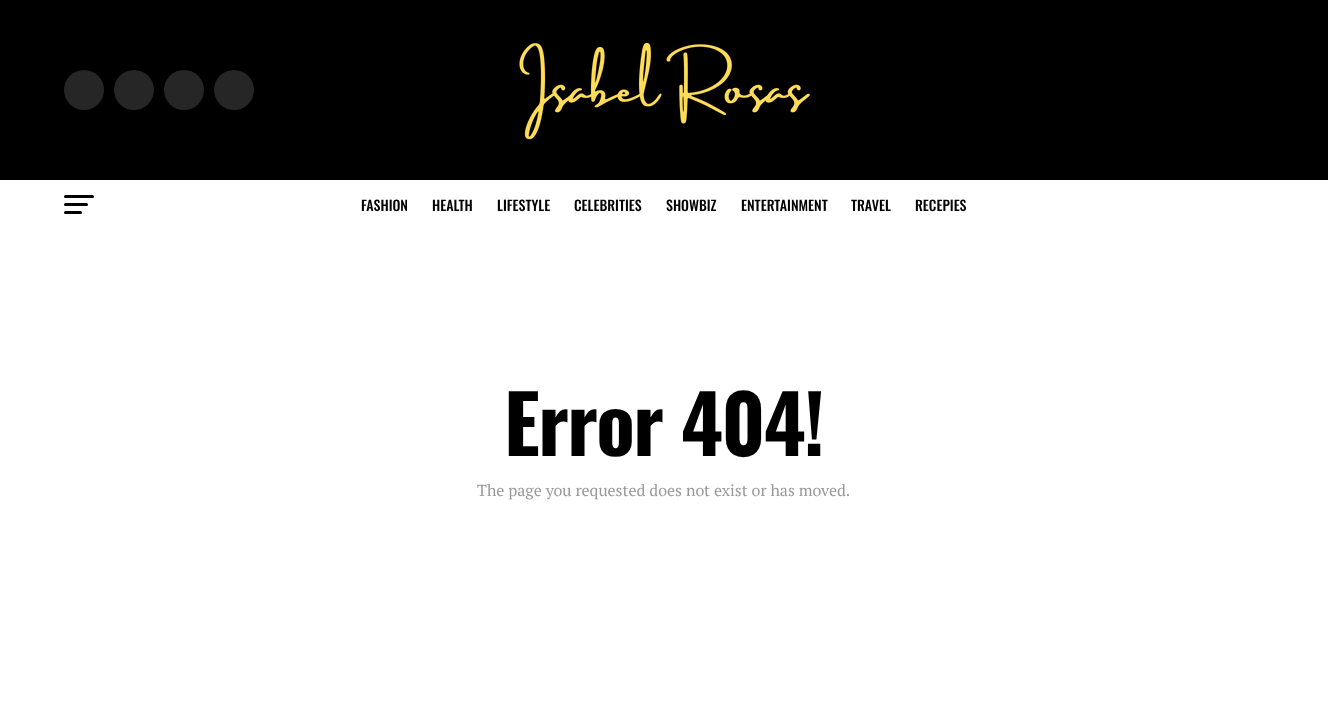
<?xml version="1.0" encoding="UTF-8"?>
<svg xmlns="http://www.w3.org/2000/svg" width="1328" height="713">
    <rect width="100%" height="100%" fill="#FFFFFF"/>
    <rect x="0" y="0" width="1328" height="180" fill="#000000"/>
    <circle cx="84" cy="90" r="20" fill="#262626"/>
    <circle cx="134" cy="90" r="20" fill="#262626"/>
    <circle cx="184" cy="90" r="20" fill="#262626"/>
    <circle cx="234" cy="90" r="20" fill="#262626"/>
    <image x="519" y="42" width="291" height="98" href="img_01.png"/>
    <rect x="64" y="195" width="30" height="3" rx="1.5" fill="#000000"/>
    <rect x="64" y="203" width="24" height="3" rx="1.5" fill="#000000"/>
    <rect x="64" y="211" width="18" height="3" rx="1.5" fill="#000000"/>
    <text x="361" y="211" font-family="Oswald" font-size="14" font-weight="500" fill="#000000">FASHION</text>
    <text x="432" y="211" font-family="Oswald" font-size="14" font-weight="500" fill="#000000">HEALTH</text>
    <text x="497" y="211" font-family="Oswald" font-size="14" font-weight="500" fill="#000000">LIFESTYLE</text>
    <text x="574" y="211" font-family="Oswald" font-size="14" font-weight="500" fill="#000000">CELEBRITIES</text>
    <text x="666" y="211" font-family="Oswald" font-size="14" font-weight="500" fill="#000000">SHOWBIZ</text>
    <text x="741" y="211" font-family="Oswald" font-size="14" font-weight="500" fill="#000000">ENTERTAINMENT</text>
    <text x="851" y="211" font-family="Oswald" font-size="14" font-weight="500" fill="#000000">TRAVEL</text>
    <text x="915" y="211" font-family="Oswald" font-size="14" font-weight="500" fill="#000000">RECEPIES</text>
    <text x="504" y="456" font-family="Oswald" font-size="80" font-weight="700" letter-spacing="-1.6" fill="#000000">Error 404!</text>
    <text x="477" y="496" font-family="PT Serif" font-size="16" fill="#999999">The page you requested does not exist or has moved.</text>
</svg>
